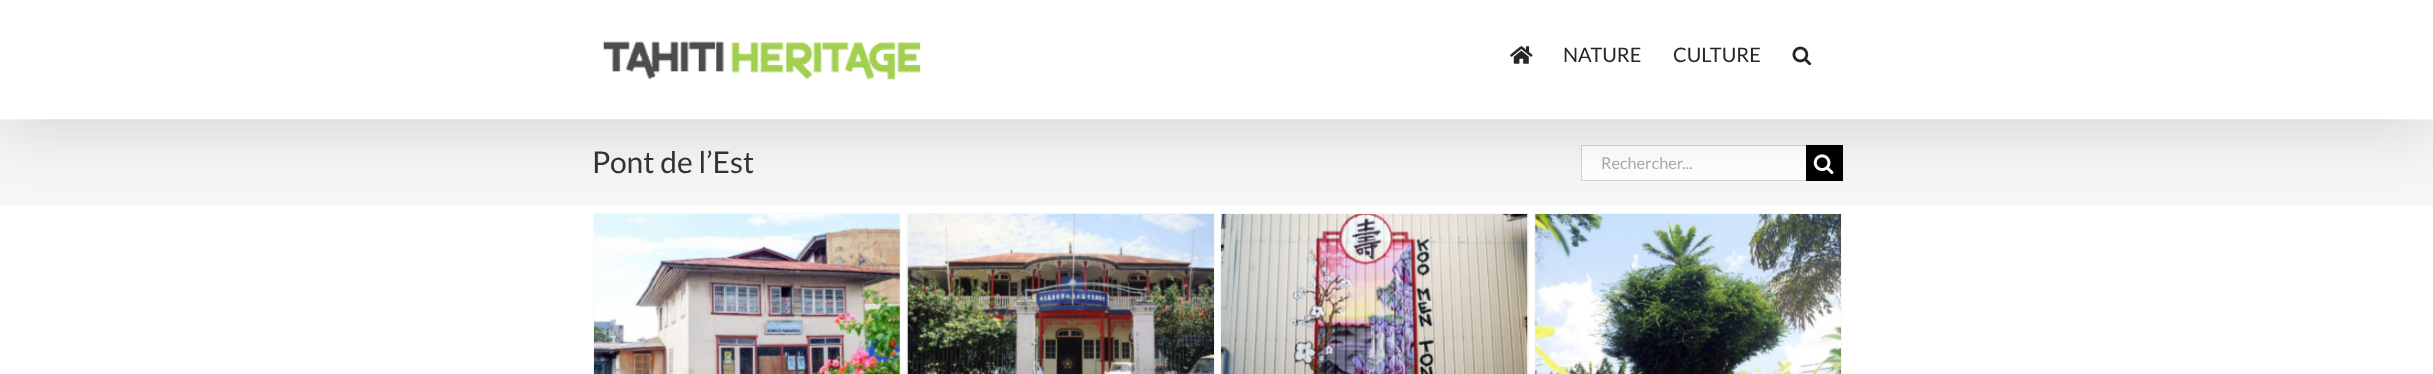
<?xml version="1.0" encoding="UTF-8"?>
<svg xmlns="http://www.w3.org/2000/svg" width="2433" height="374">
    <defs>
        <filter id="blur1" x="-50%" y="-200%" width="200%" height="500%"><feGaussianBlur stdDeviation="31"/></filter>
    </defs>
    <rect width="100%" height="100%" fill="#FFFFFF"/>
    <rect x="0" y="120" width="2433" height="85" fill="#F6F6F6"/>
    <rect x="1582" y="146" width="224" height="34" fill="#FFFFFF"/>
    <rect x="1581" y="145" width="225" height="1" fill="#D2D2D2"/>
    <rect x="1581" y="180" width="225" height="1" fill="#D2D2D2"/>
    <rect x="1581" y="145" width="1" height="36" fill="#D2D2D2"/>
    <rect x="1806" y="145" width="37" height="36" fill="#000000"/>
    <image x="1813" y="154" width="21" height="21" href="img_04.png"/>
    <rect x="593" y="213" width="308" height="1" fill="#F6F6F6"/>
    <rect x="900" y="213" width="1" height="161" fill="#F6F6F6"/>
    <rect x="593" y="213" width="1" height="161" fill="#F6F6F6"/>
    <image x="594" y="214" width="306" height="160" href="img_05.png"/>
    <rect x="906" y="213" width="309" height="1" fill="#F6F6F6"/>
    <rect x="1214" y="213" width="1" height="161" fill="#F6F6F6"/>
    <rect x="906" y="213" width="1" height="161" fill="#F6F6F6"/>
    <image x="907" y="214" width="307" height="160" href="img_06.png"/>
    <rect x="1220" y="213" width="309" height="1" fill="#F6F6F6"/>
    <rect x="1528" y="213" width="1" height="161" fill="#F6F6F6"/>
    <rect x="1220" y="213" width="1" height="161" fill="#F6F6F6"/>
    <image x="1221" y="214" width="307" height="160" href="img_07.png"/>
    <rect x="1534" y="213" width="309" height="1" fill="#F6F6F6"/>
    <rect x="1841" y="213" width="1" height="161" fill="#F6F6F6"/>
    <rect x="1534" y="213" width="1" height="161" fill="#F6F6F6"/>
    <image x="1535" y="214" width="306" height="160" href="img_08.png"/>
    <rect x="3" y="15" width="2428" height="114" fill="#000000" fill-opacity="0.14" filter="url(#blur1)"/>
    <rect x="0" y="0" width="2433" height="119" fill="#FFFFFF"/>
    <image x="603" y="41" width="318" height="39" href="img_01.png"/>
    <image x="1510" y="46" width="23" height="18" href="img_02.png"/>
    <text x="1563" y="62" font-family="Lato" font-size="20" fill="#262626">NATURE</text>
    <text x="1673" y="62" font-family="Lato" font-size="20" fill="#262626">CULTURE</text>
    <image x="1792" y="46" width="20" height="20" href="img_03.png"/>
    <text x="592" y="173" font-family="Lato" font-size="30" fill="#333333">Pont de l’Est</text>
    <text x="1601" y="169" font-family="Lato" font-size="16.25" fill="#AAA9A9">Rechercher...</text>
</svg>
